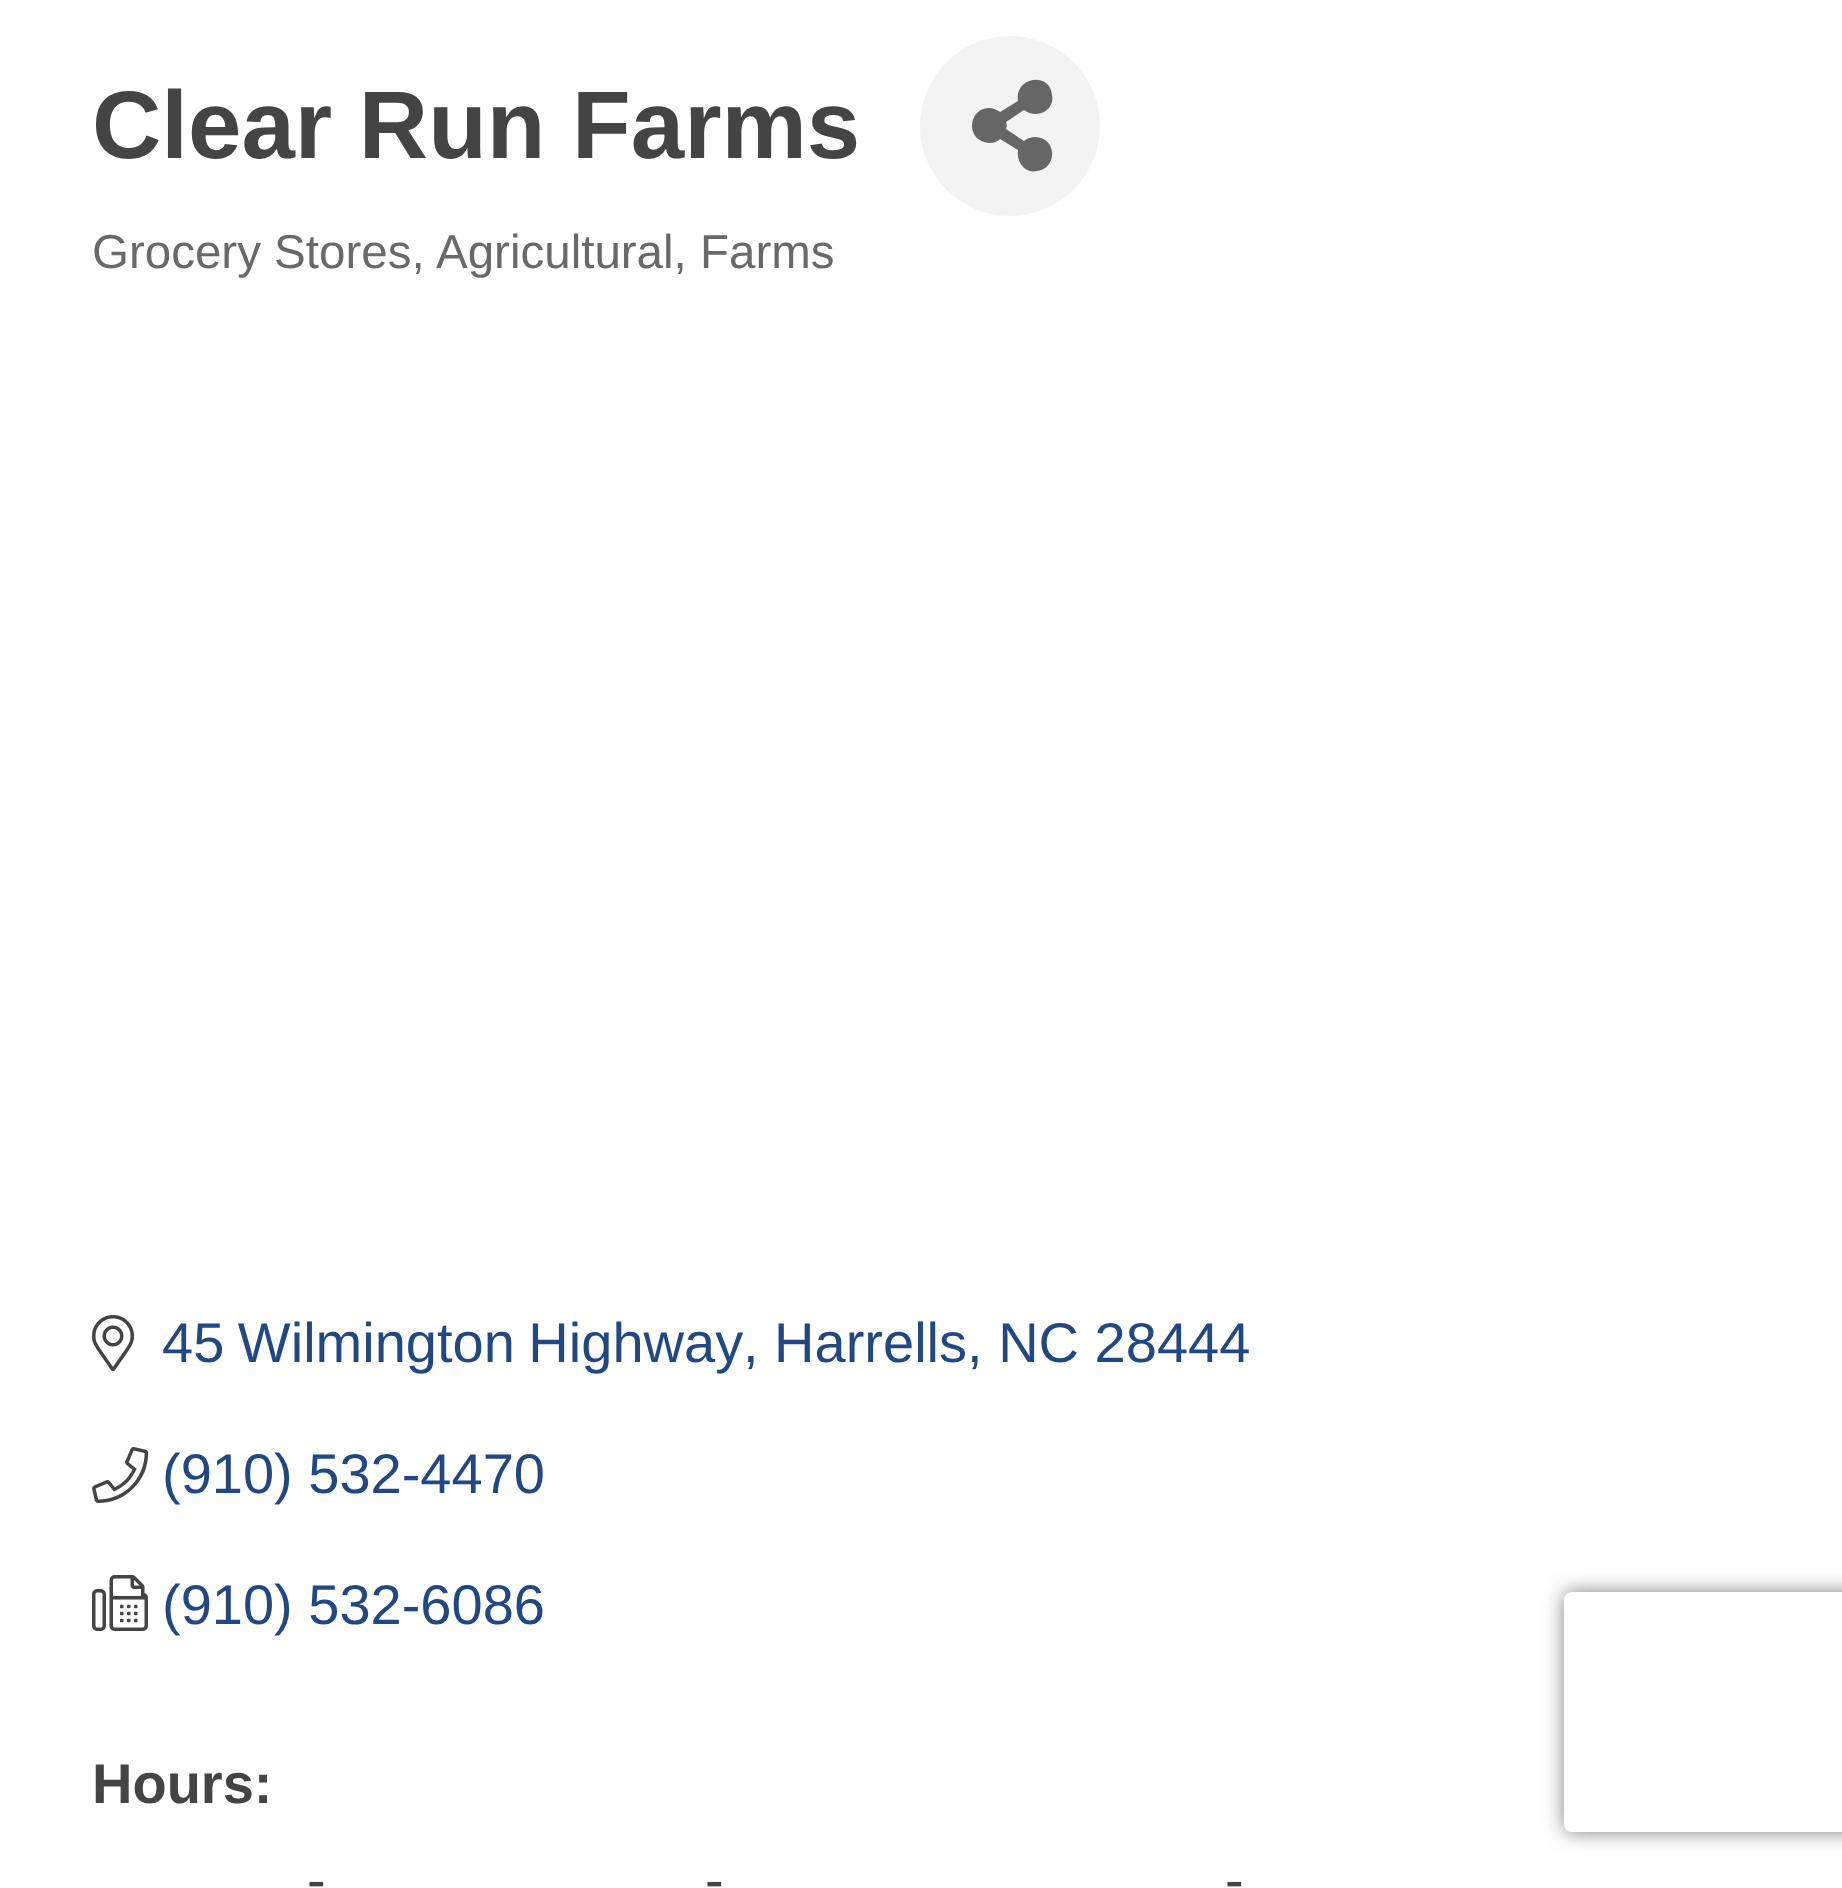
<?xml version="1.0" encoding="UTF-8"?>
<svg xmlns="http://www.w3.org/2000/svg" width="1842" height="1888">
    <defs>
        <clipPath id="clip1"><path d="M 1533 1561 H 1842 V 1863 H 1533 Z M 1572 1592 H 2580 C 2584.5 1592 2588 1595.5 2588 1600 V 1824 C 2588 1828.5 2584.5 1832 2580 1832 H 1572 C 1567.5 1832 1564 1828.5 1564 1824 V 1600 C 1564 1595.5 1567.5 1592 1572 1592 Z" clip-rule="evenodd"/></clipPath>
        <filter id="blur1" x="-50%" y="-200%" width="200%" height="500%"><feGaussianBlur stdDeviation="10"/></filter>
    </defs>
    <rect width="100%" height="100%" fill="#FFFFFF"/>
    <text x="92" y="158" font-family="Liberation Sans" font-size="96" font-weight="700" fill="#444444">Clear Run Farms</text>
    <circle cx="1010" cy="126" r="90" fill="#F3F3F3"/>
    <path d="M 1035 137 C 1057 137 1058 169 1037 171 C 1032 172 1028 171 1024 168 C 1019 163 1017 157 1018 150 L 1000 139 C 996 143 990 144 984 142 C 965 136 970 108 989 108 C 993 108 997 110 1000 112 L 1018 101 C 1014 77 1050 71 1052 95 C 1053 100 1052 104 1049 108 C 1043 115 1032 116 1024 110 L 1006 122 C 1007 124 1007 127 1006 129 L 1024 141 C 1028 138 1031 137 1035 137 Z" fill="#666666"/>
    <text x="92" y="268" font-family="Liberation Sans" font-size="47.5" fill="#696969">Grocery Stores,</text>
    <text x="436" y="268" font-family="Liberation Sans" font-size="47.5" fill="#696969">Agricultural, Farms</text>
    <image x="92" y="1315" width="42" height="56" href="img_01.png"/>
    <text x="162" y="1362" word-spacing="-2" font-family="Liberation Sans" font-size="56" fill="#224884">45 Wilmington Highway</text>
    <text x="743" y="1362" font-family="Liberation Sans" font-size="56" fill="#224884">, Harrells, NC 28444</text>
    <image x="92" y="1447" width="57" height="56" href="img_02.png"/>
    <text x="162" y="1493" font-family="Liberation Sans" font-size="56" fill="#224884">(910) 532-4470</text>
    <image x="92" y="1575" width="56" height="56" href="img_03.png"/>
    <text x="162" y="1624" font-family="Liberation Sans" font-size="56" fill="#224884">(910) 532-6086</text>
    <text x="92" y="1803" font-family="Liberation Sans" font-size="56" font-weight="700" fill="#444444">Hours:</text>
    <text x="307" y="1899" font-family="Liberation Sans" font-size="56" fill="#444444">-</text>
    <text x="705" y="1899" font-family="Liberation Sans" font-size="56" fill="#444444">-</text>
    <text x="1225" y="1899" font-family="Liberation Sans" font-size="56" fill="#444444">-</text>
    <g clip-path="url(#clip1)">
        <rect x="1564" y="1592" width="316" height="240" rx="8" fill="#808080" filter="url(#blur1)"/>
    </g>
</svg>
